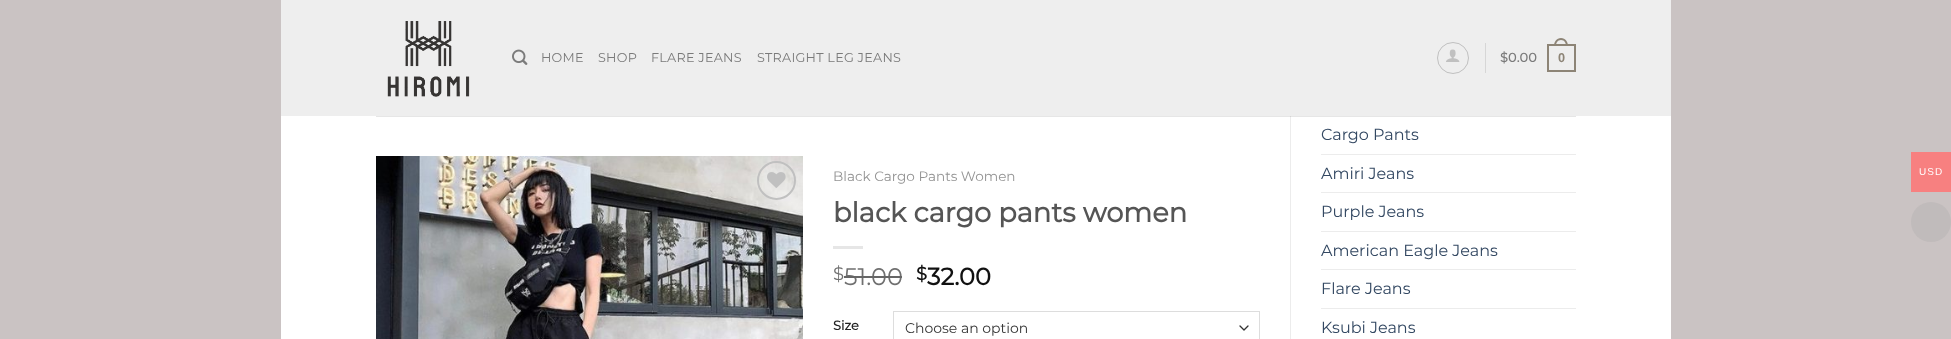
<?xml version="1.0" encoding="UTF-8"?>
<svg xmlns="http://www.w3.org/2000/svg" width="1951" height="339">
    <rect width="100%" height="100%" fill="#CAC3C3"/>
    <rect x="281" y="116" width="1390" height="223" fill="#FFFFFF"/>
    <rect x="376" y="116" width="1200" height="1" fill="#E6E6E6"/>
    <rect x="281" y="0" width="1390" height="116" fill="#EEEEEE"/>
    <image x="387" y="21" width="83" height="76" href="img_01.png"/>
    <image x="512" y="49" width="16" height="16" href="img_02.png"/>
    <text x="541" y="62" font-family="Montserrat" font-size="12.75" letter-spacing="0.25" fill="#7A7A7A">HOME</text>
    <text x="598" y="62" font-family="Montserrat" font-size="12.75" letter-spacing="0.25" fill="#7A7A7A">SHOP</text>
    <text x="651" y="62" font-family="Montserrat" font-size="12.75" letter-spacing="0.25" fill="#7A7A7A">FLARE JEANS</text>
    <text x="757" y="62" font-family="Montserrat" font-size="12.75" letter-spacing="0.25" fill="#7A7A7A">STRAIGHT LEG JEANS</text>
    <circle cx="1453" cy="58" r="15.5" fill="none" stroke="#C0C0C0"/>
    <image x="1446" y="49" width="14" height="13" href="img_03.png"/>
    <rect x="1485" y="43" width="1" height="30" fill="#D6D6D6"/>
    <text x="1500" y="62" font-family="Montserrat" font-size="12.75" font-weight="700" letter-spacing="0.25" fill="#7A7A7A">$0.00</text>
    <rect x="1548" y="45" width="27" height="26" fill="none" stroke="#8D8476" stroke-width="2"/>
    <path d="M 1561 38 C 1565.5 38 1568 42 1568 46 H 1554 C 1554 42 1556.5 38 1561 38 Z M 1561 40 C 1564.5 40 1566 43 1566 46 H 1556 C 1556 43 1557.5 40 1561 40 Z" fill="#8D8476" fill-rule="evenodd"/>
    <text x="1558" y="62" font-family="Liberation Sans" font-size="12.75" font-weight="700" letter-spacing="0.25" fill="#8D8476">0</text>
    <rect x="1290" y="116" width="1" height="223" fill="#ECECEC"/>
    <rect x="1290" y="116" width="1" height="1" fill="#D4D4D4"/>
    <image x="376" y="156" width="427" height="183" href="img_04.png"/>
    <circle cx="776.5" cy="180.5" r="18.5" fill="none" stroke="#C0C0C0" stroke-width="2"/>
    <image x="767" y="172" width="19" height="16" href="img_05.png"/>
    <text x="833" y="181" font-family="Montserrat" font-size="13.6" fill="#949494">Black Cargo Pants Women</text>
    <text x="833" y="222" font-family="Montserrat" font-size="27.25" font-weight="700" fill="#555555">black cargo pants women</text>
    <rect x="833" y="246" width="30" height="3" fill="#E6E6E6"/>
    <text x="833" y="280" font-family="Montserrat" font-size="18" fill="#707070">$</text>
    <text x="844" y="285" font-family="Montserrat" font-size="24" fill="#707070">51.00</text>
    <rect x="844" y="276" width="58" height="2" fill="#666666"/>
    <text x="916" y="280" font-family="Montserrat" font-size="18" font-weight="700" fill="#111111">$</text>
    <text x="927" y="285" font-family="Montserrat" font-size="24" font-weight="700" fill="#111111">32.00</text>
    <text x="833" y="330" font-family="Montserrat" font-size="13" font-weight="700" fill="#222222">Size</text>
    <path d="M 1240 326 L 1244 330 L 1248 326" fill="none" stroke="#333333" stroke-width="1.3" stroke-linecap="round" stroke-linejoin="round"/>
    <rect x="893.5" y="311.5" width="366" height="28" fill="none" stroke="#DDDDDD"/>
    <text x="905" y="333" font-family="Montserrat" font-size="14" fill="#333333">Choose an option</text>
    <text x="1321" y="140" font-family="Montserrat" font-size="16" fill="#334862">Cargo Pants</text>
    <rect x="1321" y="154" width="255" height="1" fill="#ECECEC"/>
    <text x="1321" y="179" font-family="Montserrat" font-size="16" fill="#334862">Amiri Jeans</text>
    <rect x="1321" y="192" width="255" height="1" fill="#ECECEC"/>
    <text x="1321" y="217" font-family="Montserrat" font-size="16" fill="#334862">Purple Jeans</text>
    <rect x="1321" y="231" width="255" height="1" fill="#ECECEC"/>
    <text x="1321" y="256" font-family="Montserrat" font-size="16" fill="#334862">American Eagle Jeans</text>
    <rect x="1321" y="269" width="255" height="1" fill="#ECECEC"/>
    <text x="1321" y="294" font-family="Montserrat" font-size="16" fill="#334862">Flare Jeans</text>
    <rect x="1321" y="308" width="255" height="1" fill="#ECECEC"/>
    <text x="1321" y="333" font-family="Montserrat" font-size="16" fill="#334862">Ksubi Jeans</text>
    <rect x="1911" y="152" width="40" height="40" fill="#F78080"/>
    <text x="1919" y="175" font-family="Liberation Sans" font-size="10" letter-spacing="1" fill="#FFFFFF">USD</text>
    <circle cx="1931" cy="222" r="20" fill="#C0BBBB"/>
</svg>
